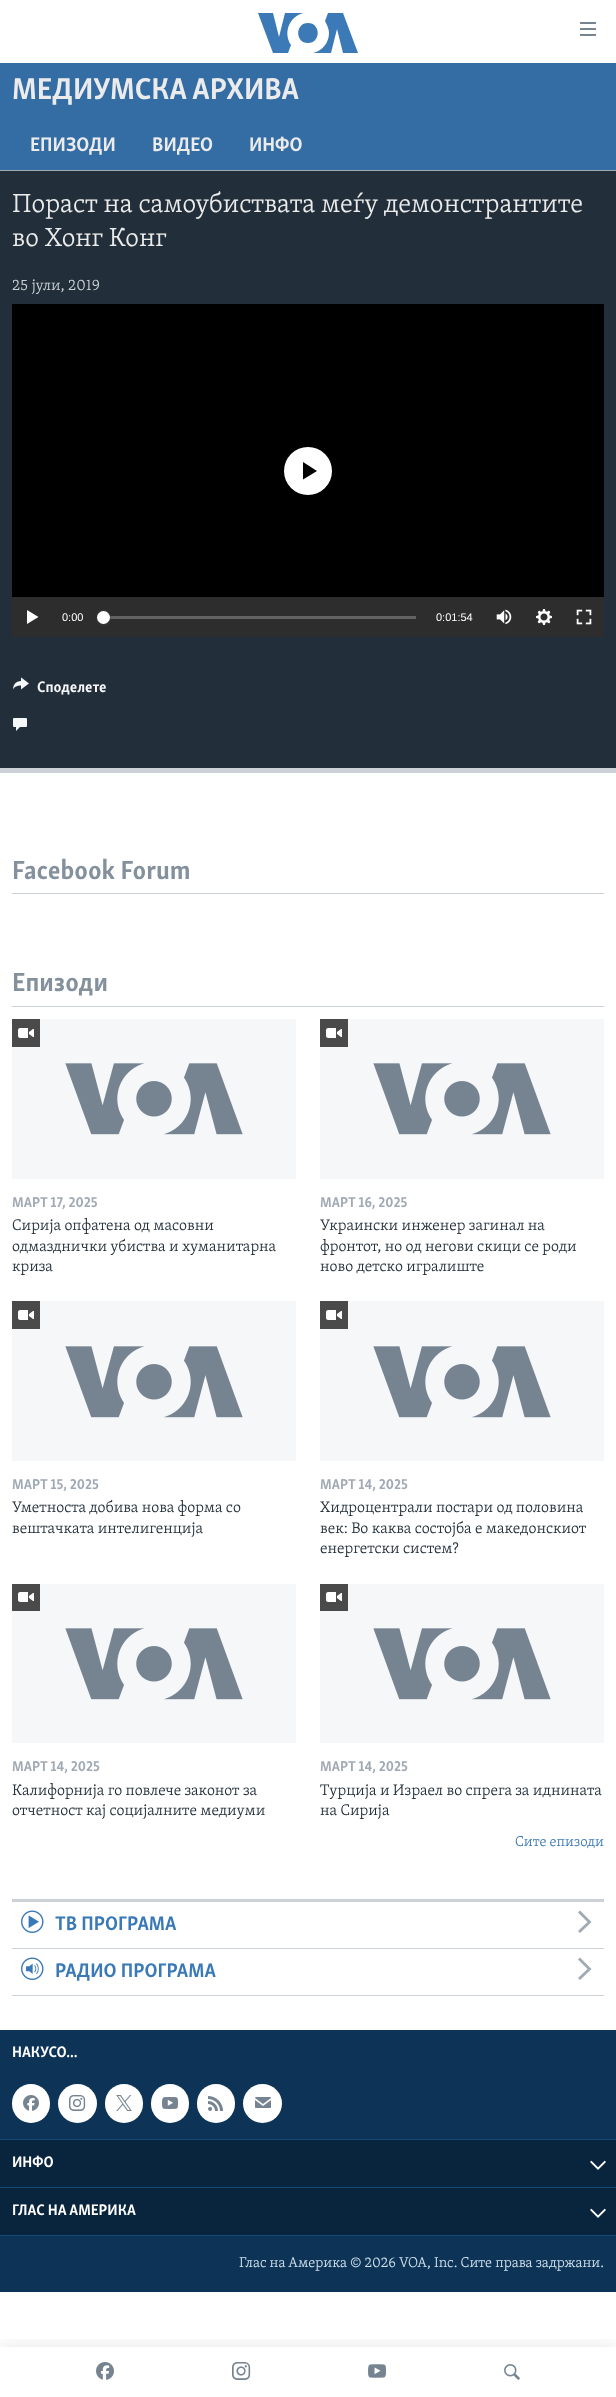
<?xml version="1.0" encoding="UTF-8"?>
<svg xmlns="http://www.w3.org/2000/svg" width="616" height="2397">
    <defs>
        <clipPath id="clip1"><rect x="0" y="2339" width="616" height="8"/></clipPath>
        <filter id="blur1" x="-50%" y="-200%" width="200%" height="500%"><feGaussianBlur stdDeviation="10"/></filter>
        <filter id="blur2" x="-50%" y="-200%" width="200%" height="500%"><feGaussianBlur stdDeviation="1.5"/></filter>
    </defs>
    <rect width="100%" height="100%" fill="#FFFFFF"/>
    <path d="M 291 45 L 288 53 H 273 L 258 13 H 273 L 279 37 L 285 13 H 303 C 289 17 283 33 291 45 Z M 308 23 C 295 23 295 43 308 43 C 321 43 321 23 308 23 Z M 329 33 C 329 43 322 51 313 53 H 331 L 337 29 L 343 53 H 358 L 343 13 H 328 L 325 21 C 327 25 329 29 329 33 Z" fill="#3B79B7"/>
    <image x="580" y="22" width="16" height="14" href="img_01.png"/>
    <g clip-path="url(#clip1)">
        <rect x="0" y="2347" width="616" height="50" fill="#000000" fill-opacity="0.1" filter="url(#blur1)"/>
    </g>
    <image x="96" y="2362" width="18" height="18" href="img_02.png"/>
    <image x="232" y="2362" width="19" height="18" href="img_03.png"/>
    <image x="368" y="2364" width="18" height="14" href="img_04.png"/>
    <image x="504" y="2364" width="16" height="16" href="img_05.png"/>
    <rect x="0" y="63" width="616" height="107" fill="#346CA4"/>
    <text x="12" y="99" font-family="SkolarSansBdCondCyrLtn" font-size="31" font-weight="700" fill="#EBEBEB">МЕДИУМСКА АРХИВА</text>
    <text x="30" y="151" font-family="SkolarSansBdCondCyrLtn" font-size="20.25" font-weight="700" fill="#EBEBEB">ЕПИЗОДИ</text>
    <text x="152" y="151" font-family="SkolarSansBdCondCyrLtn" font-size="20.25" font-weight="700" fill="#EBEBEB">ВИДЕО</text>
    <text x="249" y="151" font-family="SkolarSansBdCondCyrLtn" font-size="20.25" font-weight="700" fill="#EBEBEB">ИНФО</text>
    <rect x="0" y="171" width="616" height="597" fill="#222F3A"/>
    <rect x="0" y="170" width="616" height="1" fill="#A1AAB4"/>
    <rect x="0" y="768" width="616" height="5" fill="#CBD1D6"/>
    <text font-family="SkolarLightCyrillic" font-size="27" font-weight="300" fill="#EBEBEB">
        <tspan x="12" y="212">Пораст на самоубиствата меѓу демонстрантите</tspan>
        <tspan x="12" y="246">во Хонг Конг</tspan>
    </text>
    <text x="12" y="290" font-family="SkolarLightCyrillic" font-size="15.75" font-weight="300" fill="#CBD1D6">25 јули, 2019</text>
    <rect x="12" y="304" width="592" height="293" fill="#000000"/>
    <circle cx="308" cy="471" r="24" fill="#FFFFFF"/>
    <path d="M 303 479.5 L 317 471 L 303 462 Z" fill="#000000"/>
    <rect x="12" y="597" width="592" height="40" fill="#2D2D2D"/>
    <path d="M 27 624 L 38.5 617 L 27 610 Z" fill="#FFFFFF"/>
    <text x="62" y="621" font-family="Liberation Sans" font-size="11" fill="#FFFFFF">0:00</text>
    <rect x="103" y="616" width="313" height="3" fill="#626262"/>
    <rect x="97" y="611" width="13" height="13" rx="6.5" fill="#414144" filter="url(#blur2)"/>
    <circle cx="103.5" cy="617.5" r="6.5" fill="#FFFFFF"/>
    <text x="436" y="621" font-family="Liberation Sans" font-size="11" fill="#FFFFFF">0:01:54</text>
    <image x="496" y="609" width="16" height="16" href="img_06.png"/>
    <image x="536" y="609" width="16" height="16" href="img_07.png"/>
    <image x="576" y="609" width="16" height="16" href="img_08.png"/>
    <image x="13" y="677" width="16" height="13" href="img_09.png"/>
    <text x="37" y="692" font-family="SkolarSansBdCondCyrLtn" font-size="15.75" font-weight="700" fill="#F6F7F8">Споделете</text>
    <image x="13" y="718" width="14" height="13" href="img_10.png"/>
    <rect x="12" y="893" width="592" height="1" fill="#CBD1D6"/>
    <text x="12" y="879" font-family="SkolarSansBdCondCyrLtn" font-size="27" font-weight="700" fill="#84919D">Facebook Forum</text>
    <rect x="12" y="1006" width="592" height="1" fill="#CBD1D6"/>
    <text x="12" y="991" font-family="SkolarSansBdCondCyrLtn" font-size="27" font-weight="700" fill="#84919D">Епизоди</text>
    <rect x="12" y="1019" width="284" height="160" fill="#F6F7F8"/>
    <image x="65" y="1063" width="178" height="72" href="img_11.png"/>
    <rect x="12" y="1019" width="28" height="28" fill="#4A4A4A"/>
    <image x="18" y="1028" width="16" height="10" href="img_12.png"/>
    <text x="12" y="1207" font-family="SkolarSansBdCondCyrLtn" font-size="14.6" font-weight="700" fill="#A1AAB4">МАРТ 17, 2025</text>
    <text font-family="SkolarLightCyrillic" font-size="15.75" font-weight="300" fill="#222F3A">
        <tspan x="12" y="1230">Сирија опфатена од масовни</tspan>
        <tspan x="12" y="1251">одмазднички убиства и хуманитарна</tspan>
        <tspan x="12" y="1271">криза</tspan>
    </text>
    <rect x="320" y="1019" width="284" height="160" fill="#F6F7F8"/>
    <image x="373" y="1063" width="178" height="72" href="img_11.png"/>
    <rect x="320" y="1019" width="28" height="28" fill="#4A4A4A"/>
    <image x="326" y="1028" width="16" height="10" href="img_12.png"/>
    <text x="320" y="1207" font-family="SkolarSansBdCondCyrLtn" font-size="14.6" font-weight="700" fill="#A1AAB4">МАРТ 16, 2025</text>
    <text font-family="SkolarLightCyrillic" font-size="15.75" font-weight="300" fill="#222F3A">
        <tspan x="320" y="1230">Украински инженер загинал на</tspan>
        <tspan x="320" y="1251">фронтот, но од негови скици се роди</tspan>
        <tspan x="320" y="1271">ново детско игралиште</tspan>
    </text>
    <rect x="12" y="1301" width="284" height="160" fill="#F6F7F8"/>
    <image x="65" y="1346" width="178" height="72" href="img_11.png"/>
    <rect x="12" y="1301" width="28" height="28" fill="#4A4A4A"/>
    <image x="18" y="1310" width="16" height="10" href="img_12.png"/>
    <text x="12" y="1489" font-family="SkolarSansBdCondCyrLtn" font-size="14.6" font-weight="700" fill="#A1AAB4">МАРТ 15, 2025</text>
    <text font-family="SkolarLightCyrillic" font-size="15.75" font-weight="300" fill="#222F3A">
        <tspan x="12" y="1512">Уметноста добива нова форма со</tspan>
        <tspan x="12" y="1533">вештачката интелигенција</tspan>
    </text>
    <rect x="320" y="1301" width="284" height="160" fill="#F6F7F8"/>
    <image x="373" y="1346" width="178" height="72" href="img_11.png"/>
    <rect x="320" y="1301" width="28" height="28" fill="#4A4A4A"/>
    <image x="326" y="1310" width="16" height="10" href="img_12.png"/>
    <text x="320" y="1489" font-family="SkolarSansBdCondCyrLtn" font-size="14.6" font-weight="700" fill="#A1AAB4">МАРТ 14, 2025</text>
    <text font-family="SkolarLightCyrillic" font-size="15.75" font-weight="300" fill="#222F3A">
        <tspan x="320" y="1512">Хидроцентрали постари од половина</tspan>
        <tspan x="320" y="1533">век: Во каква состојба е македонскиот</tspan>
        <tspan x="320" y="1553">енергетски систем?</tspan>
    </text>
    <rect x="12" y="1584" width="284" height="159" fill="#F6F7F8"/>
    <image x="65" y="1628" width="178" height="72" href="img_11.png"/>
    <rect x="12" y="1584" width="28" height="27" fill="#4A4A4A"/>
    <image x="18" y="1592" width="16" height="10" href="img_12.png"/>
    <text x="12" y="1771" font-family="SkolarSansBdCondCyrLtn" font-size="14.6" font-weight="700" fill="#A1AAB4">МАРТ 14, 2025</text>
    <text font-family="SkolarLightCyrillic" font-size="15.75" font-weight="300" fill="#222F3A">
        <tspan x="12" y="1795">Калифорнија го повлече законот за</tspan>
        <tspan x="12" y="1815">отчетност кај социјалните медиуми</tspan>
    </text>
    <rect x="320" y="1584" width="284" height="159" fill="#F6F7F8"/>
    <image x="373" y="1628" width="178" height="72" href="img_11.png"/>
    <rect x="320" y="1584" width="28" height="27" fill="#4A4A4A"/>
    <image x="326" y="1592" width="16" height="10" href="img_12.png"/>
    <text x="320" y="1771" font-family="SkolarSansBdCondCyrLtn" font-size="14.6" font-weight="700" fill="#A1AAB4">МАРТ 14, 2025</text>
    <text font-family="SkolarLightCyrillic" font-size="15.75" font-weight="300" fill="#222F3A">
        <tspan x="320" y="1795">Турција и Израел во спрега за иднината</tspan>
        <tspan x="320" y="1815">на Сирија</tspan>
    </text>
    <text x="515" y="1846" font-family="SkolarLightCyrillic" font-size="14.6" font-weight="300" fill="#3A79B7">Сите епизоди</text>
    <rect x="12" y="1899" width="592" height="3" fill="#CBD1D6"/>
    <rect x="12" y="1948" width="592" height="1" fill="#CBD1D6"/>
    <image x="21" y="1910" width="23" height="23" href="img_13.png"/>
    <text x="55" y="1930" font-family="SkolarSansBdCondCyrLtn" font-size="20.25" font-weight="700" fill="#3A79B7">ТВ ПРОГРАМА</text>
    <path d="M 580 1933 L 591.5 1922 L 580 1910.5 L 578 1912.5 L 587.5 1922 L 578 1931 Z" fill="#A1AAB4"/>
    <rect x="12" y="1995" width="592" height="1" fill="#CBD1D6"/>
    <image x="21" y="1957" width="23" height="23" href="img_14.png"/>
    <text x="55" y="1977" font-family="SkolarSansBdCondCyrLtn" font-size="20.25" font-weight="700" fill="#3A79B7">РАДИО ПРОГРАМА</text>
    <path d="M 580 1980 L 591.5 1969 L 580 1957.5 L 578 1959.5 L 587.5 1969 L 578 1978 Z" fill="#A1AAB4"/>
    <rect x="0" y="2030" width="616" height="262" fill="#0D3456"/>
    <rect x="0" y="2235" width="616" height="1" fill="#134976"/>
    <text x="12" y="2057" font-family="SkolarSansBdCondCyrLtn" font-size="15.75" font-weight="700" fill="#FFFFFF">НАКУСО...</text>
    <rect x="12" y="2084" width="38" height="39" rx="19" fill="#FFFFFF"/>
    <image x="23" y="2095" width="16" height="16" href="img_15.png"/>
    <circle cx="77.5" cy="2103.5" r="19.5" fill="#FFFFFF"/>
    <image x="69" y="2095" width="17" height="16" href="img_16.png"/>
    <rect x="105" y="2084" width="38" height="39" rx="19" fill="#FFFFFF"/>
    <image x="116" y="2095" width="16" height="16" href="img_17.png"/>
    <rect x="151" y="2084" width="38" height="39" rx="19" fill="#FFFFFF"/>
    <image x="162" y="2097" width="16" height="12" href="img_18.png"/>
    <rect x="197" y="2084" width="38" height="39" rx="19" fill="#FFFFFF"/>
    <image x="208" y="2096" width="15" height="15" href="img_19.png"/>
    <circle cx="262.5" cy="2103.5" r="19.5" fill="#FFFFFF"/>
    <image x="255" y="2097" width="16" height="11" href="img_20.png"/>
    <rect x="0" y="2139" width="616" height="1" fill="#134976"/>
    <rect x="0" y="2140" width="616" height="47" fill="#09243D"/>
    <text x="12" y="2167" font-family="SkolarSansBdCondCyrLtn" font-size="15.75" font-weight="700" fill="#FFFFFF">ИНФО</text>
    <image x="590" y="2160" width="16" height="10" href="img_21.png"/>
    <rect x="0" y="2187" width="616" height="1" fill="#134976"/>
    <rect x="0" y="2188" width="616" height="47" fill="#09243D"/>
    <text x="12" y="2215" font-family="SkolarSansBdCondCyrLtn" font-size="15.75" font-weight="700" fill="#FFFFFF">ГЛАС НА АМЕРИКА</text>
    <image x="590" y="2208" width="16" height="10" href="img_21.png"/>
    <text x="239" y="2267" font-family="SkolarLightCyrillic" font-size="14.6" font-weight="300" fill="#D1E1EE">Глас на Америка © 2026 VOA, Inc. Сите права задржани.</text>
</svg>
